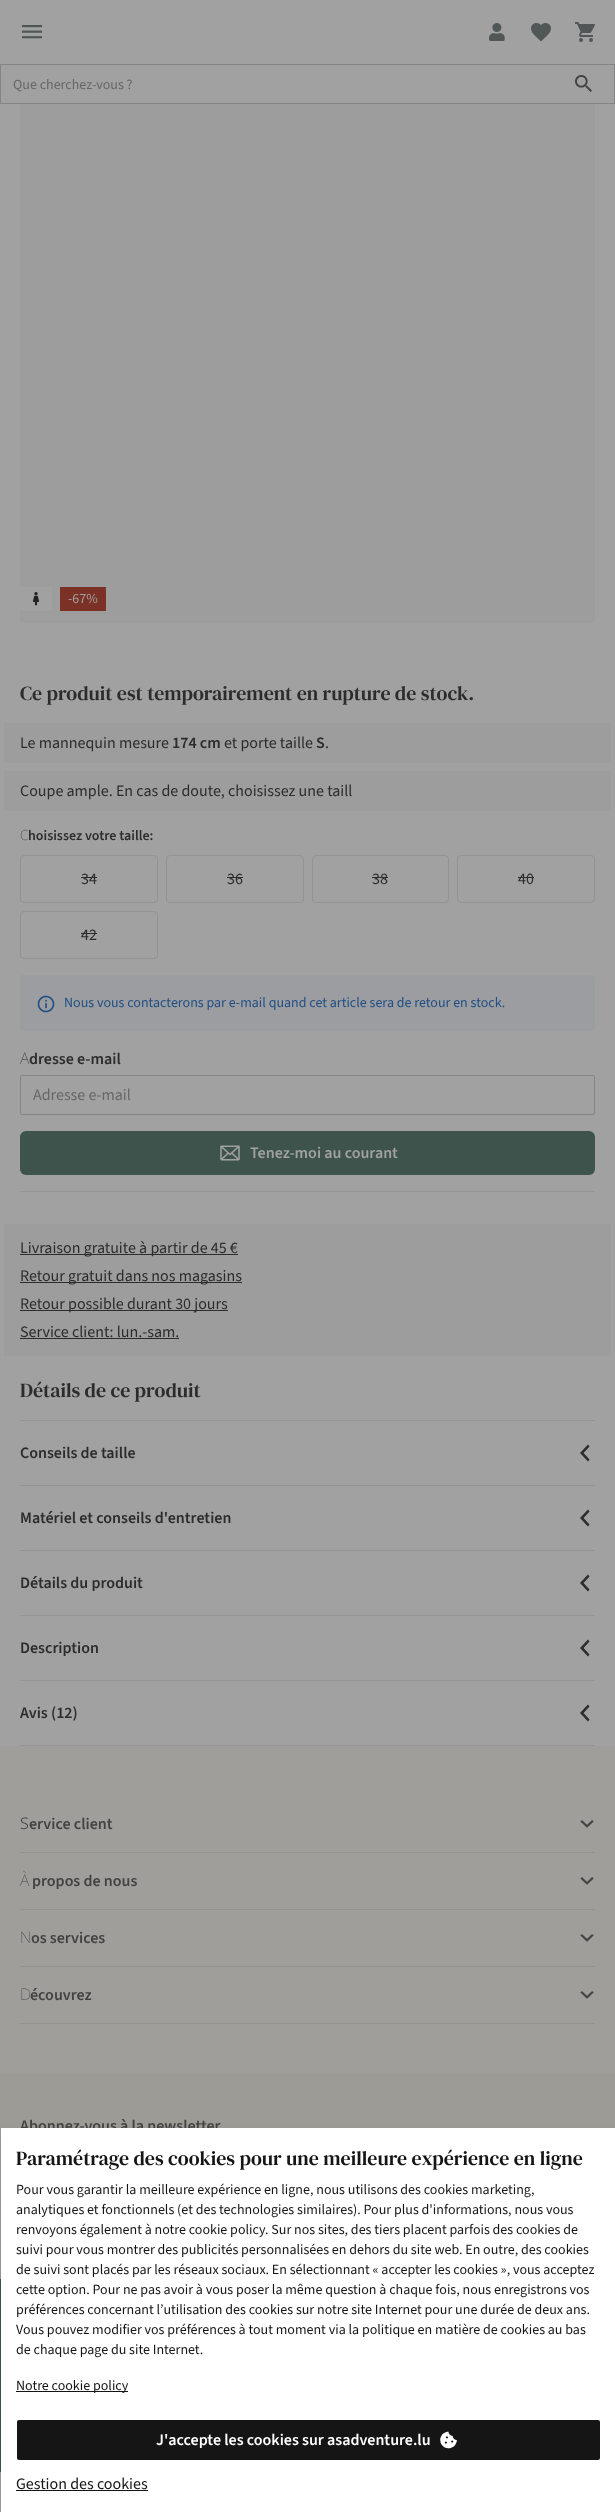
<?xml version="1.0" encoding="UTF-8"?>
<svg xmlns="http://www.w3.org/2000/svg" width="615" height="2512">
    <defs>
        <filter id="blur1" x="-50%" y="-200%" width="200%" height="500%"><feGaussianBlur stdDeviation="8"/></filter>
    </defs>
    <rect width="100%" height="100%" fill="#A1A1A1"/>
    <image x="22" y="25" width="20" height="14" href="img_01.png"/>
    <image x="489" y="23" width="16" height="18" href="img_02.png"/>
    <image x="531" y="23" width="20" height="19" href="img_03.png"/>
    <image x="575" y="22" width="20" height="20" href="img_04.png"/>
    <rect x="0.5" y="64.5" width="614" height="39" fill="none" stroke="#858585"/>
    <text x="13" y="89" font-family="'Source Sans 3'" font-size="14" fill="#676767">Que cherchez-vous ?</text>
    <image x="575" y="75" width="17" height="17" href="img_05.png"/>
    <rect x="20" y="104" width="575" height="519" fill="#9D9D9D"/>
    <rect x="20" y="587" width="32" height="24" fill="#A1A1A1"/>
    <image x="32" y="592" width="8" height="14" href="img_06.png"/>
    <rect x="60" y="587" width="46" height="24" fill="#7C3126"/>
    <text x="68" y="603" font-family="'Source Sans 3'" font-size="14" fill="#A1A1A1">-67%</text>
    <text x="20" y="700" font-family="DM Serif Text" font-size="20" fill="#2C2C2C">Ce produit est temporairement en rupture de stock.</text>
    <rect x="4" y="723" width="607" height="40" fill="#9D9D9D"/>
    <text x="20" y="748" font-family="'Source Sans 3'" font-size="16" fill="#2C2C2C">Le mannequin mesure</text>
    <text x="172" y="748" font-family="'Source Sans 3'" font-size="16" font-weight="600" fill="#2C2C2C">174 cm</text>
    <text x="224" y="748" font-family="'Source Sans 3'" font-size="16" fill="#2C2C2C">et porte taille</text>
    <text x="316" y="748" font-family="'Source Sans 3'" font-size="16" font-weight="600" fill="#2C2C2C">S</text>
    <text x="325" y="748" font-family="'Source Sans 3'" font-size="16" fill="#2C2C2C">.</text>
    <rect x="4" y="771" width="607" height="40" fill="#9D9D9D"/>
    <text x="20" y="796" font-family="'Source Sans 3'" font-size="16" fill="#2C2C2C">Coupe ample. En cas de doute, choisissez une taill</text>
    <text x="20" y="840" font-family="Noto Sans" font-size="14" font-weight="100" fill="#2C2C2C">C</text>
    <text x="28" y="840" font-family="'Source Sans 3'" font-size="14" font-weight="600" fill="#2C2C2C">hoisissez votre taille:</text>
    <rect x="20.5" y="855.5" width="137" height="47" rx="3.5" fill="none" stroke="#939393"/>
    <text x="81" y="884" font-family="'Source Sans 3'" font-size="16" fill="#2C2C2C">34</text>
    <rect x="81" y="877" width="16" height="1" fill="#2C2C2C"/>
    <rect x="166.5" y="855.5" width="137" height="47" rx="3.5" fill="none" stroke="#939393"/>
    <text x="227" y="884" font-family="'Source Sans 3'" font-size="16" fill="#2C2C2C">36</text>
    <rect x="227" y="877" width="16" height="1" fill="#2C2C2C"/>
    <rect x="312.5" y="855.5" width="136" height="47" rx="3.5" fill="none" stroke="#939393"/>
    <text x="372" y="884" font-family="'Source Sans 3'" font-size="16" fill="#2C2C2C">38</text>
    <rect x="372" y="877" width="16" height="1" fill="#2C2C2C"/>
    <rect x="457.5" y="855.5" width="137" height="47" rx="3.5" fill="none" stroke="#939393"/>
    <text x="518" y="884" font-family="'Source Sans 3'" font-size="16" fill="#2C2C2C">40</text>
    <rect x="518" y="877" width="16" height="1" fill="#2C2C2C"/>
    <rect x="20.5" y="911.5" width="137" height="47" rx="3.5" fill="none" stroke="#939393"/>
    <text x="81" y="940" font-family="'Source Sans 3'" font-size="16" fill="#2C2C2C">42</text>
    <rect x="81" y="933" width="16" height="1" fill="#2C2C2C"/>
    <rect x="20" y="975" width="575" height="56" rx="2" fill="#9B9DA0"/>
    <image x="37" y="995" width="18" height="18" href="img_07.png"/>
    <text x="64" y="1007" font-family="'Source Sans 3'" font-size="14" fill="#224F85">Nous vous contacterons par e-mail quand cet article sera de retour en stock.</text>
    <text x="20" y="1064" font-family="Noto Sans" font-size="16" font-weight="100" fill="#2C2C2C">A</text>
    <text x="29" y="1064" font-family="'Source Sans 3'" font-size="16" font-weight="600" fill="#2C2C2C">dresse e-mail</text>
    <rect x="20.5" y="1075.5" width="574" height="39" rx="1.5" fill="none" stroke="#858585"/>
    <text x="33" y="1100" font-family="'Source Sans 3'" font-size="16" fill="#676767">Adresse e-mail</text>
    <rect x="20" y="1131" width="575" height="44" rx="6" fill="#3D534B"/>
    <image x="220" y="1145" width="20" height="16" href="img_08.png"/>
    <text x="250" y="1158" font-family="'Source Sans 3'" font-size="16" font-weight="600" fill="#A1A1A1">Tenez-moi au courant</text>
    <rect x="20" y="1191" width="575" height="1" fill="#949494"/>
    <rect x="4" y="1224" width="607" height="132" fill="#9D9D9D"/>
    <rect x="20" y="1254" width="218" height="1" fill="#2C2C2C"/>
    <text x="20" y="1253" font-family="'Source Sans 3'" font-size="16" fill="#2C2C2C">Livraison gratuite à partir de 45 €</text>
    <rect x="20" y="1282" width="222" height="1" fill="#2C2C2C"/>
    <text x="20" y="1281" font-family="'Source Sans 3'" font-size="16" fill="#2C2C2C">Retour gratuit dans nos magasins</text>
    <rect x="20" y="1310" width="208" height="1" fill="#2C2C2C"/>
    <text font-family="'Source Sans 3'" font-size="16" fill="#2C2C2C">
        <tspan x="20" y="1309">Retour possible durant 30 jours</tspan>
        <tspan x="20" y="1337">Service client: lun.-sam.</tspan>
    </text>
    <rect x="20" y="1338" width="159" height="1" fill="#2C2C2C"/>
    <text x="20" y="1397" font-family="DM Serif Text" font-size="20" fill="#2C2C2C">Détails de ce produit</text>
    <rect x="20" y="1420" width="575" height="1" fill="#949494"/>
    <text x="20" y="1458" font-family="'Source Sans 3'" font-size="16" font-weight="600" fill="#2C2C2C">Conseils de taille</text>
    <path d="M 589.5 1446.5 L 583.5 1453 L 589.5 1459.5 L 588 1461.5 L 580 1453 L 588 1444.5 Z" fill="#2C2C2C"/>
    <rect x="20" y="1485" width="575" height="1" fill="#949494"/>
    <text x="20" y="1523" font-family="'Source Sans 3'" font-size="16" font-weight="600" fill="#2C2C2C">Matériel et conseils d'entretien</text>
    <path d="M 589.5 1511.5 L 583.5 1518 L 589.5 1524.5 L 588 1526.5 L 580 1518 L 588 1509.5 Z" fill="#2C2C2C"/>
    <rect x="20" y="1550" width="575" height="1" fill="#949494"/>
    <text x="20" y="1588" font-family="'Source Sans 3'" font-size="16" font-weight="600" fill="#2C2C2C">Détails du produit</text>
    <path d="M 589.5 1576.5 L 583.5 1583 L 589.5 1589.5 L 588 1591.5 L 580 1583 L 588 1574.5 Z" fill="#2C2C2C"/>
    <rect x="20" y="1615" width="575" height="1" fill="#949494"/>
    <text x="20" y="1653" font-family="'Source Sans 3'" font-size="16" font-weight="600" fill="#2C2C2C">Description</text>
    <path d="M 589.5 1641.5 L 583.5 1648 L 589.5 1654.5 L 588 1656.5 L 580 1648 L 588 1639.5 Z" fill="#2C2C2C"/>
    <rect x="20" y="1680" width="575" height="1" fill="#949494"/>
    <text x="20" y="1718" font-family="'Source Sans 3'" font-size="16" font-weight="600" fill="#2C2C2C">Avis (12)</text>
    <path d="M 589.5 1706.5 L 583.5 1713 L 589.5 1719.5 L 588 1721.5 L 580 1713 L 588 1704.5 Z" fill="#2C2C2C"/>
    <rect x="20" y="1745" width="575" height="1" fill="#949494"/>
    <rect x="0" y="2074" width="615" height="205" fill="#9D9B95"/>
    <rect x="0" y="2279" width="1" height="193" fill="#3D534B"/>
    <rect x="1" y="2136" width="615" height="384" fill="#141414" fill-opacity="0.1" filter="url(#blur1)"/>
    <text x="20" y="2131" font-family="'Source Sans 3'" font-size="16" font-weight="600" fill="#424242">Abonnez-vous à la newsletter</text>
    <rect x="1" y="2128" width="614" height="384" fill="#FFFFFF"/>
    <text x="16" y="2165" font-family="DM Serif Text" font-size="20" fill="#151515">Paramétrage des cookies pour une meilleure expérience en ligne</text>
    <text font-family="'Source Sans 3'" font-size="14" fill="#151515">
        <tspan x="16" y="2194">Pour vous garantir la meilleure expérience en ligne, nous utilisons des cookies marketing,</tspan>
        <tspan x="16" y="2214">analytiques et fonctionnels (et des technologies similaires). Pour plus d'informations, nous vous</tspan>
        <tspan x="16" y="2234">renvoyons également à notre cookie policy. Sur nos sites, des tiers placent parfois des cookies de</tspan>
        <tspan x="16" y="2254">suivi pour vous montrer des publicités personnalisées en dehors du site web. En outre, des cookies</tspan>
        <tspan x="16" y="2274">de suivi sont placés par les réseaux sociaux. En sélectionnant « accepter les cookies », vous acceptez</tspan>
        <tspan x="16" y="2294">cette option. Pour ne pas avoir à vous poser la même question à chaque fois, nous enregistrons vos</tspan>
        <tspan x="16" y="2314">préférences concernant l’utilisation des cookies sur notre site Internet pour une durée de deux ans.</tspan>
        <tspan x="16" y="2334">Vous pouvez modifier vos préférences à tout moment via la politique en matière de cookies au bas</tspan>
        <tspan x="16" y="2354">de chaque page du site Internet.</tspan>
    </text>
    <rect x="16" y="2391" width="112" height="1" fill="#151515"/>
    <text x="16" y="2390" font-family="'Source Sans 3'" font-size="14" fill="#151515">Notre cookie policy</text>
    <rect x="17" y="2420" width="583" height="40" rx="2" fill="#151515"/>
    <text x="156" y="2445" font-family="'Source Sans 3'" font-size="16" font-weight="600" fill="#FFFFFF">J'accepte les cookies sur asadventure.lu</text>
    <image x="440" y="2431" width="17" height="18" href="img_09.png"/>
    <text x="16" y="2489" font-family="'Source Sans 3'" font-size="16" fill="#151515">Gestion des cookies</text>
    <rect x="16" y="2490" width="132" height="1" fill="#151515"/>
    <rect x="0" y="1746" width="615" height="328" fill="#9F9E9A"/>
    <text x="20" y="1829" font-family="Noto Sans" font-size="16" font-weight="300" fill="#424242">S</text>
    <text x="29" y="1829" font-family="'Source Sans 3'" font-size="16" font-weight="600" fill="#424242">ervice client</text>
    <image x="580" y="1820" width="14" height="8" href="img_10.png"/>
    <rect x="20" y="1852" width="575" height="1" fill="#929290"/>
    <text x="20" y="1886" font-family="Noto Sans" font-size="16" font-weight="100" fill="#424242">À</text>
    <text x="32" y="1886" font-family="'Source Sans 3'" font-size="16" font-weight="600" fill="#424242">propos de nous</text>
    <image x="580" y="1877" width="14" height="8" href="img_10.png"/>
    <rect x="20" y="1909" width="575" height="1" fill="#929290"/>
    <text x="20" y="1943" font-family="Noto Sans" font-size="16" font-weight="100" fill="#424242">N</text>
    <text x="31" y="1943" font-family="'Source Sans 3'" font-size="16" font-weight="600" fill="#424242">os services</text>
    <image x="580" y="1934" width="14" height="8" href="img_10.png"/>
    <rect x="20" y="1966" width="575" height="1" fill="#929290"/>
    <text x="20" y="2000" font-family="Noto Sans" font-size="16" font-weight="100" fill="#424242">D</text>
    <text x="30" y="2000" font-family="'Source Sans 3'" font-size="16" font-weight="600" fill="#424242">écouvrez</text>
    <image x="580" y="1991" width="14" height="8" href="img_10.png"/>
    <rect x="20" y="2023" width="575" height="1" fill="#929290"/>
</svg>
